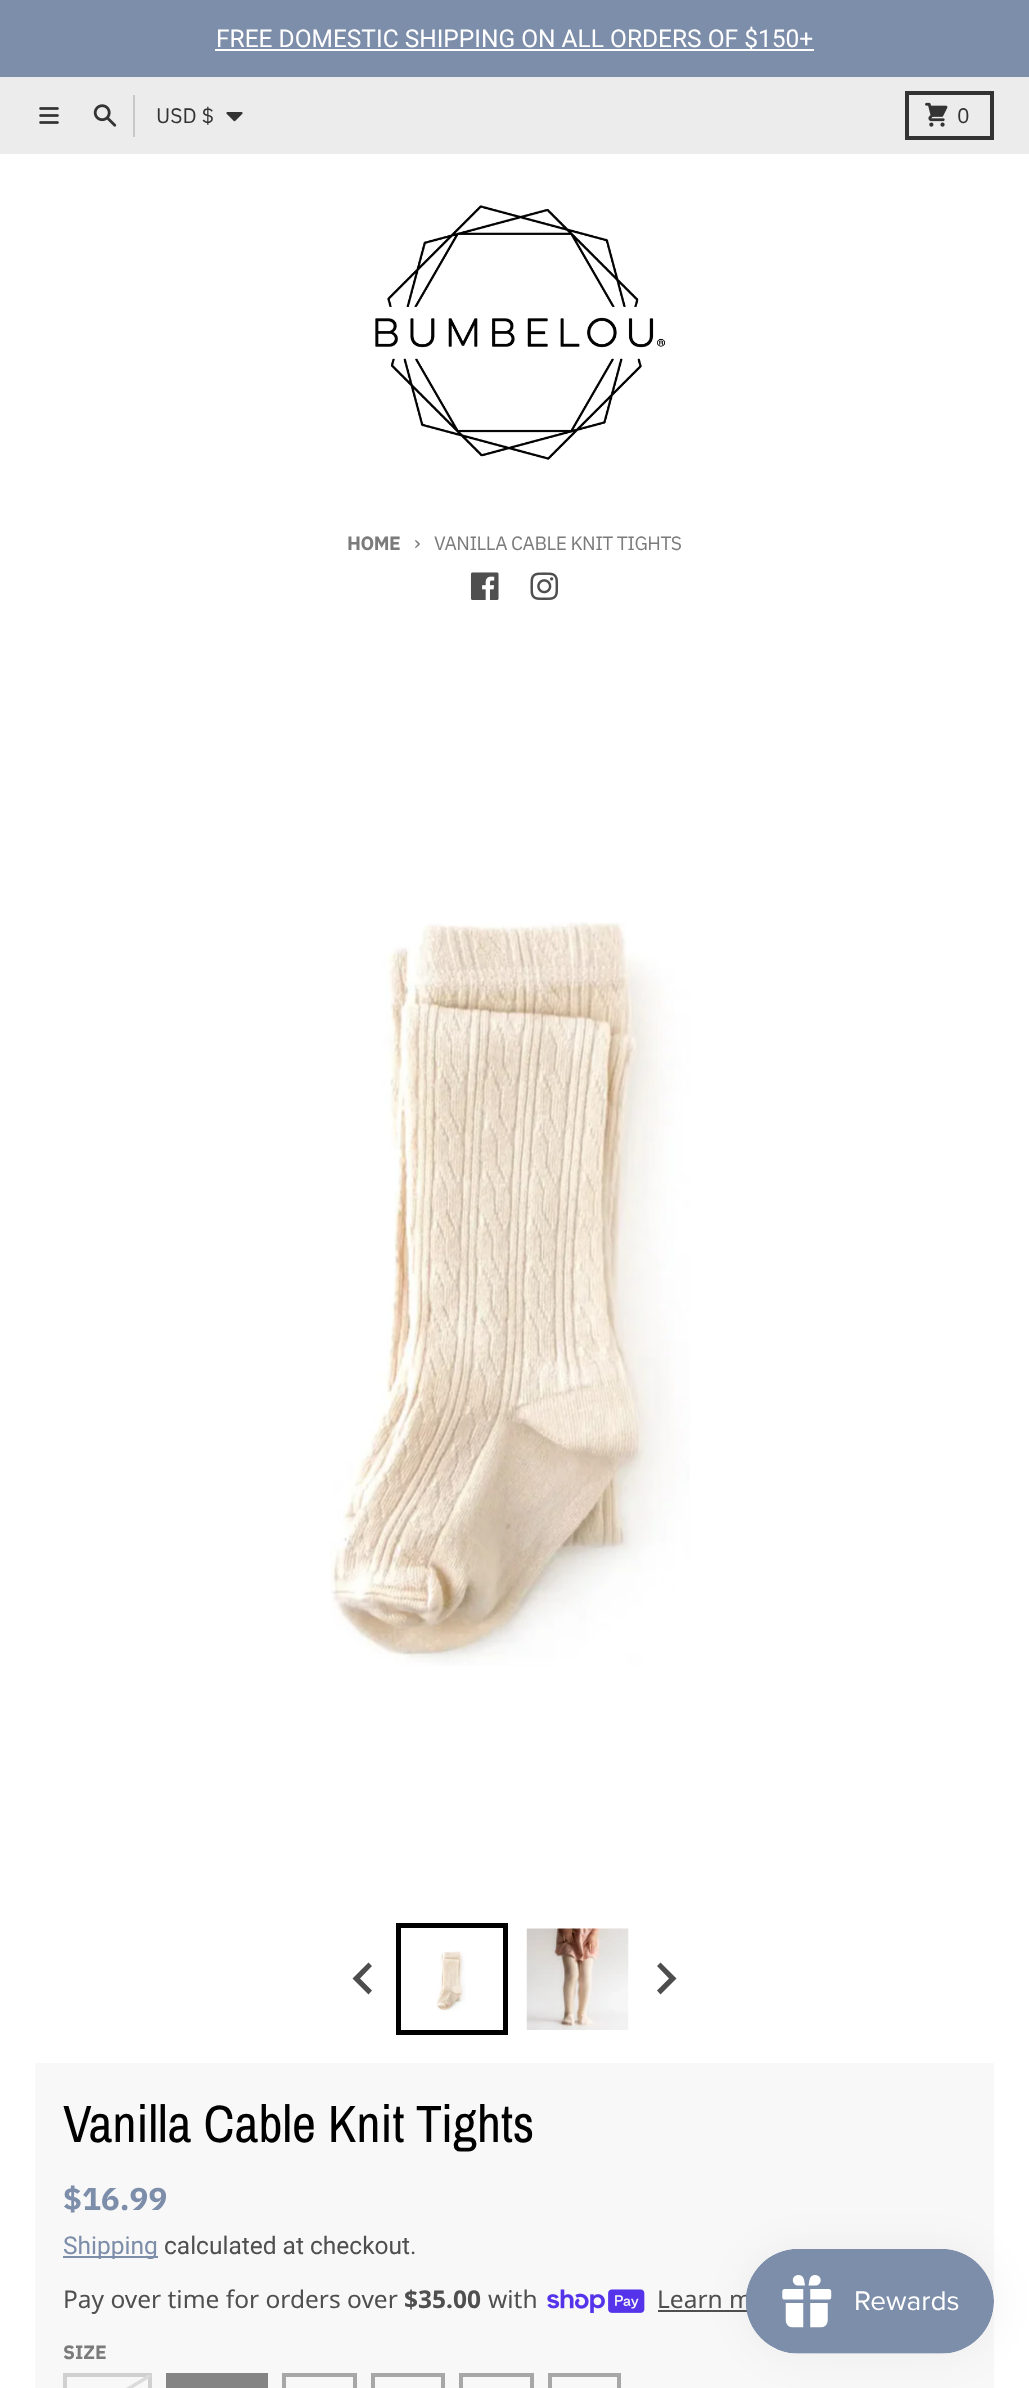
<?xml version="1.0" encoding="UTF-8"?>
<svg xmlns="http://www.w3.org/2000/svg" width="1029" height="2388">
    <defs>
        <clipPath id="clip1"><rect x="65" y="2375" width="86" height="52"/></clipPath>
        <filter id="blur1" x="-50%" y="-200%" width="200%" height="500%"><feGaussianBlur stdDeviation="22"/></filter>
    </defs>
    <rect width="100%" height="100%" fill="#ECECEC"/>
    <rect x="0" y="0" width="1029" height="77" fill="#7D8EAA"/>
    <rect x="215" y="49" width="599" height="2" fill="#FFFFFF"/>
    <text x="216" y="47" font-family="Roboto" font-size="24.5" fill="#FFFFFF">FREE DOMESTIC SHIPPING ON ALL ORDERS OF $150+</text>
    <image x="39" y="107" width="20" height="17" href="img_01.png"/>
    <image x="93" y="104" width="24" height="23" href="img_02.png"/>
    <rect x="133" y="95" width="2" height="42" fill="#C7C7C7"/>
    <text x="156" y="123" font-family="IBM Plex Sans" font-size="21" fill="#333333">USD $</text>
    <image x="226" y="112" width="17" height="10" href="img_03.png"/>
    <rect x="907" y="93" width="85" height="45" fill="none" stroke="#333333" stroke-width="4"/>
    <image x="925" y="102" width="23" height="25" href="img_04.png"/>
    <text x="957" y="123" font-family="IBM Plex Sans" font-size="21" fill="#333333">0</text>
    <rect x="0" y="154" width="1029" height="2234" fill="#FFFFFF"/>
    <image x="375" y="205" width="291" height="255" href="img_05.png"/>
    <text x="347" y="550" font-family="IBM Plex Sans" font-size="19.25" font-weight="700" letter-spacing="-0.5" fill="#7B7B7B">HOME</text>
    <text x="414" y="550" font-family="IBM Plex Sans" font-size="21" letter-spacing="-0.5" fill="#7B7B7B">›</text>
    <text x="434" y="550" font-family="IBM Plex Sans" font-size="19.25" letter-spacing="-0.5" fill="#7B7B7B">VANILLA CABLE KNIT TIGHTS</text>
    <image x="470" y="572" width="29" height="28" href="img_06.png"/>
    <image x="530" y="572" width="29" height="28" href="img_07.png"/>
    <image x="330" y="922" width="360" height="744" href="img_08.png"/>
    <rect x="398.5" y="1925.5" width="107" height="107" fill="none" stroke="#000000" stroke-width="5"/>
    <image x="436" y="1951" width="30" height="60" href="img_09.png"/>
    <image x="526" y="1928" width="103" height="102" href="img_10.png"/>
    <path d="M 368.5 1962.5 L 372 1966 L 360 1978.5 L 372 1990.5 L 368.5 1994.5 L 352.5 1978.5 Z" fill="#4D4D4D"/>
    <path d="M 660.5 1962.5 L 657 1966 L 669 1978.5 L 657 1990.5 L 660.5 1994.5 L 676.5 1978.5 Z" fill="#4D4D4D"/>
    <rect x="35" y="2063" width="959" height="325" fill="#F8F8F8"/>
    <text x="63" y="2142" font-family="Archivo Narrow" font-size="52.5" fill="#000000">Vanilla Cable Knit Tights</text>
    <text x="63" y="2210" font-family="IBM Plex Sans" font-size="31.5" font-weight="700" fill="#7D8EAA">$16.99</text>
    <rect x="63" y="2256" width="95" height="2" fill="#7D8EAA"/>
    <text x="63" y="2254" font-family="Roboto" font-size="24.5" fill="#7D8EAA">Shipping</text>
    <text x="164" y="2254" font-family="Roboto" font-size="24.5" fill="#4F4F4F">calculated at checkout.</text>
    <text x="63" y="2308" font-family="Noto Sans" font-size="24.5" fill="#4F4F4F">Pay over time for orders over</text>
    <text x="404" y="2308" font-family="Noto Sans" font-size="24.5" font-weight="700" fill="#4F4F4F">$35.00</text>
    <text x="488" y="2308" font-family="Noto Sans" font-size="24.5" fill="#4F4F4F">with</text>
    <image x="547" y="2289" width="98" height="24" href="img_11.png"/>
    <text x="657" y="2308" font-family="Noto Sans" font-size="24.5" fill="#4F4F4F">Learn m</text>
    <rect x="658" y="2310" width="89" height="2" fill="#4F4F4F"/>
    <text x="63" y="2359" font-family="IBM Plex Sans" font-size="19.25" font-weight="700" fill="#7B7B7B">SIZE</text>
    <rect x="65" y="2375" width="85" height="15" fill="none" stroke="#D0D0D0" stroke-width="4"/>
    <g clip-path="url(#clip1)">
        <path d="M 65 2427 L 151 2375" fill="none" stroke="#DBDBDB" stroke-width="3.5"/>
    </g>
    <rect x="166" y="2373" width="102" height="15" fill="#848484"/>
    <rect x="284" y="2375" width="71" height="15" fill="none" stroke="#A7A7A7" stroke-width="4"/>
    <rect x="373" y="2375" width="70" height="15" fill="none" stroke="#A7A7A7" stroke-width="4"/>
    <rect x="461" y="2375" width="71" height="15" fill="none" stroke="#A7A7A7" stroke-width="4"/>
    <rect x="550" y="2375" width="69" height="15" fill="none" stroke="#A7A7A7" stroke-width="4"/>
    <rect x="746" y="2249" width="248" height="105" rx="52.5" fill="#000000" fill-opacity="0.05" filter="url(#blur1)"/>
    <image x="745" y="2249" width="249" height="105" href="img_12.png"/>
</svg>
